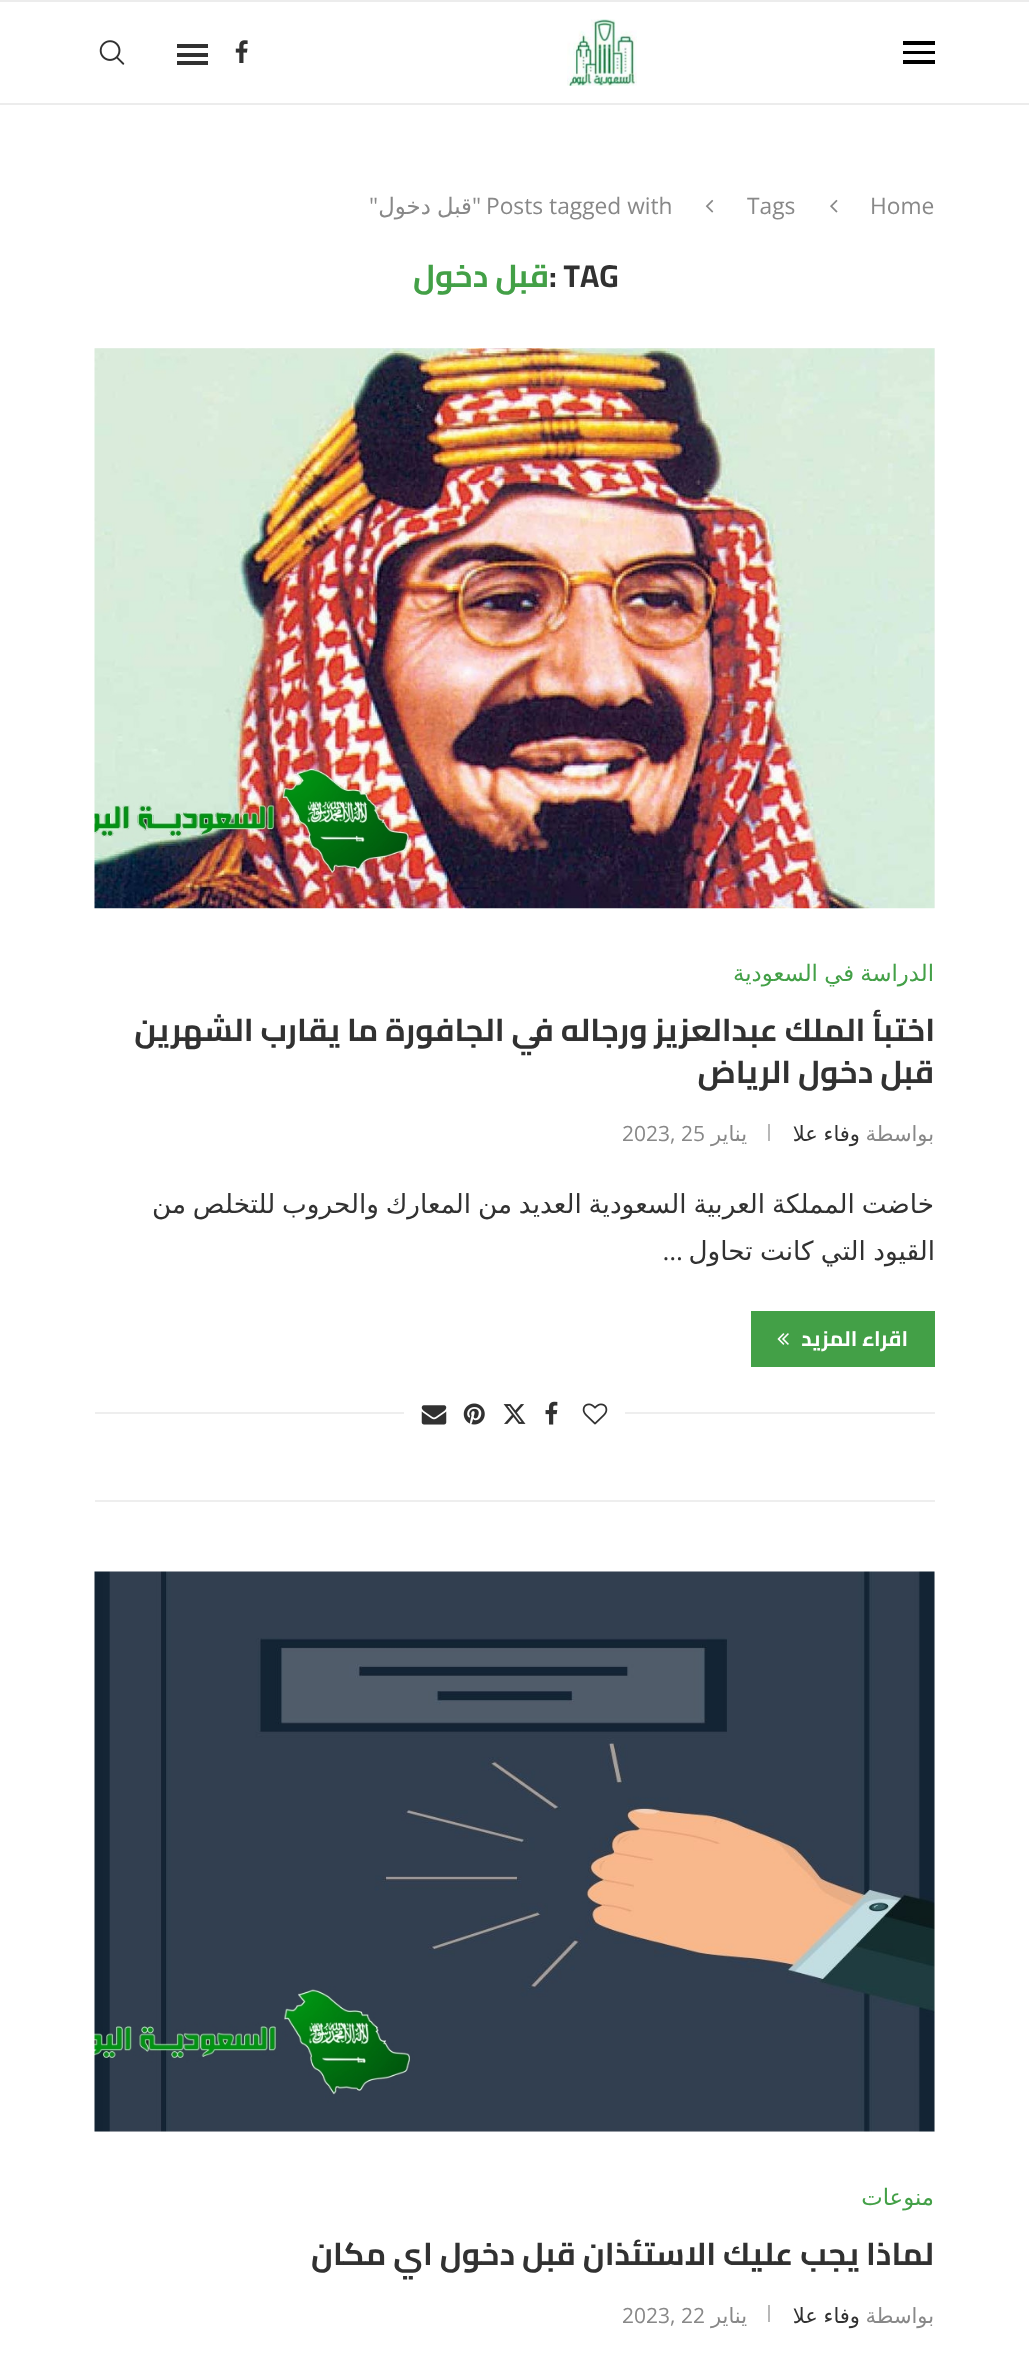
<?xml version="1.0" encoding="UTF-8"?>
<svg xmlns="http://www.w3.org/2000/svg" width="1029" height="2377">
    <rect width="100%" height="100%" fill="#FFFFFF"/>
    <rect x="0" y="0" width="1029" height="2" fill="#ECECEC"/>
    <rect x="0" y="103" width="1029" height="2" fill="#ECECEC"/>
    <rect x="903" y="41" width="32" height="4" fill="#000000"/>
    <rect x="903" y="51" width="32" height="3" fill="#000000"/>
    <rect x="903" y="60" width="32" height="4" fill="#000000"/>
    <image x="567" y="19" width="70" height="67" href="img_01.png"/>
    <image x="235" y="40" width="13" height="23" href="img_02.png"/>
    <rect x="177" y="44" width="31" height="4" fill="#313131"/>
    <rect x="177" y="61" width="31" height="4" fill="#313131"/>
    <rect x="177" y="53" width="31" height="4" fill="#313131"/>
    <image x="99" y="40" width="26" height="25" href="img_03.png"/>
    <text x="870" y="214" font-family="Open Sans" font-size="22.75" fill="#888888">Home</text>
    <image x="830" y="199" width="8" height="14" href="img_04.png"/>
    <text x="747" y="214" font-family="Open Sans" font-size="22.75" fill="#888888">Tags</text>
    <image x="705" y="199" width="9" height="14" href="img_05.png"/>
    <text x="486" y="214" font-family="Open Sans" font-size="22.75" fill="#888888">Posts tagged with</text>
    <text x="481" y="214" font-family="Open Sans" font-size="22.75" direction="rtl" fill="#888888">"</text>
    <text x="472" y="214" word-spacing="-1" font-family="DejaVu Sans" font-size="22.75" direction="rtl" fill="#888888">قبل دخول</text>
    <text x="378" y="214" font-family="Open Sans" font-size="22.75" direction="rtl" fill="#888888">"</text>
    <text x="549" y="287" font-family="Cairo" font-size="31.5" font-weight="700" fill="#313131">: TAG</text>
    <text x="549" y="287" font-family="Cairo" font-size="31.5" font-weight="700" direction="rtl" fill="#43A047">قبل دخول</text>
    <rect x="95" y="1500" width="840" height="2" fill="#EEEEEE"/>
    <rect x="95" y="348" width="840" height="560" fill="#F5F5F5"/>
    <image x="94" y="348" width="841" height="561" href="img_06.png"/>
    <text x="934" y="981" word-spacing="-1" font-family="DejaVu Sans" font-size="22.75" direction="rtl" fill="#43A047">الدراسة في السعودية</text>
    <text x="935" y="1041" font-family="Cairo" font-size="31.5" font-weight="700" direction="rtl" fill="#313131">اختبأ الملك عبدالعزيز ورجاله في الجافورة ما يقارب الشهرين</text>
    <text x="934" y="1083" font-family="Cairo" font-size="31.5" font-weight="700" direction="rtl" fill="#313131">قبل دخول الرياض</text>
    <text x="934" y="1141" font-family="DejaVu Sans" font-size="21" direction="rtl" fill="#888888">بواسطة</text>
    <text x="860" y="1141" word-spacing="-1" font-family="DejaVu Sans" font-size="21" direction="rtl" fill="#313131">وفاء علا</text>
    <rect x="768" y="1124" width="2" height="17" fill="#B8B8B8"/>
    <text x="747" y="1141" font-family="DejaVu Sans" font-size="21" direction="rtl" fill="#888888">يناير</text>
    <text x="622" y="1141" font-family="Open Sans" font-size="21" fill="#888888">2023, 25</text>
    <text x="934" y="1213" word-spacing="-1.5" font-family="DejaVu Sans" font-size="26.25" direction="rtl" fill="#313131">خاضت المملكة العربية السعودية العديد من المعارك والحروب للتخلص من</text>
    <text x="935" y="1260" word-spacing="-1" font-family="DejaVu Sans" font-size="26.25" direction="rtl" fill="#313131">القيود التي كانت تحاول</text>
    <text x="683" y="1260" font-family="Open Sans" font-size="26.25" direction="rtl" fill="#313131">…</text>
    <rect x="751" y="1311" width="184" height="56" fill="#43A047"/>
    <text x="908" y="1346" font-family="Cairo" font-size="21" font-weight="700" direction="rtl" fill="#FFFFFF">اقراء المزيد</text>
    <image x="777" y="1333" width="12" height="12" href="img_07.png"/>
    <rect x="95" y="1412" width="840" height="2" fill="#EEEEEE"/>
    <rect x="404" y="1412" width="221" height="2" fill="#FFFFFF"/>
    <image x="582" y="1403" width="26" height="22" href="img_08.png"/>
    <image x="545" y="1401" width="13" height="24" href="img_09.png"/>
    <image x="503" y="1404" width="23" height="20" href="img_10.png"/>
    <image x="463" y="1403" width="22" height="22" href="img_11.png"/>
    <image x="421" y="1405" width="26" height="20" href="img_12.png"/>
    <rect x="95" y="1572" width="840" height="560" fill="#F5F5F5"/>
    <image x="94" y="1571" width="841" height="561" href="img_13.png"/>
    <text x="934" y="2205" font-family="DejaVu Sans" font-size="22.75" direction="rtl" fill="#43A047">منوعات</text>
    <text x="934" y="2265" font-family="Cairo" font-size="31.5" font-weight="700" direction="rtl" fill="#313131">لماذا يجب عليك الاستئذان قبل دخول اي مكان</text>
    <text x="934" y="2323" font-family="DejaVu Sans" font-size="21" direction="rtl" fill="#888888">بواسطة</text>
    <text x="860" y="2323" word-spacing="-1" font-family="DejaVu Sans" font-size="21" direction="rtl" fill="#313131">وفاء علا</text>
    <rect x="768" y="2305" width="2" height="17" fill="#B8B8B8"/>
    <text x="747" y="2323" font-family="DejaVu Sans" font-size="21" direction="rtl" fill="#888888">يناير</text>
    <text x="622" y="2323" font-family="Open Sans" font-size="21" fill="#888888">2023, 22</text>
</svg>
